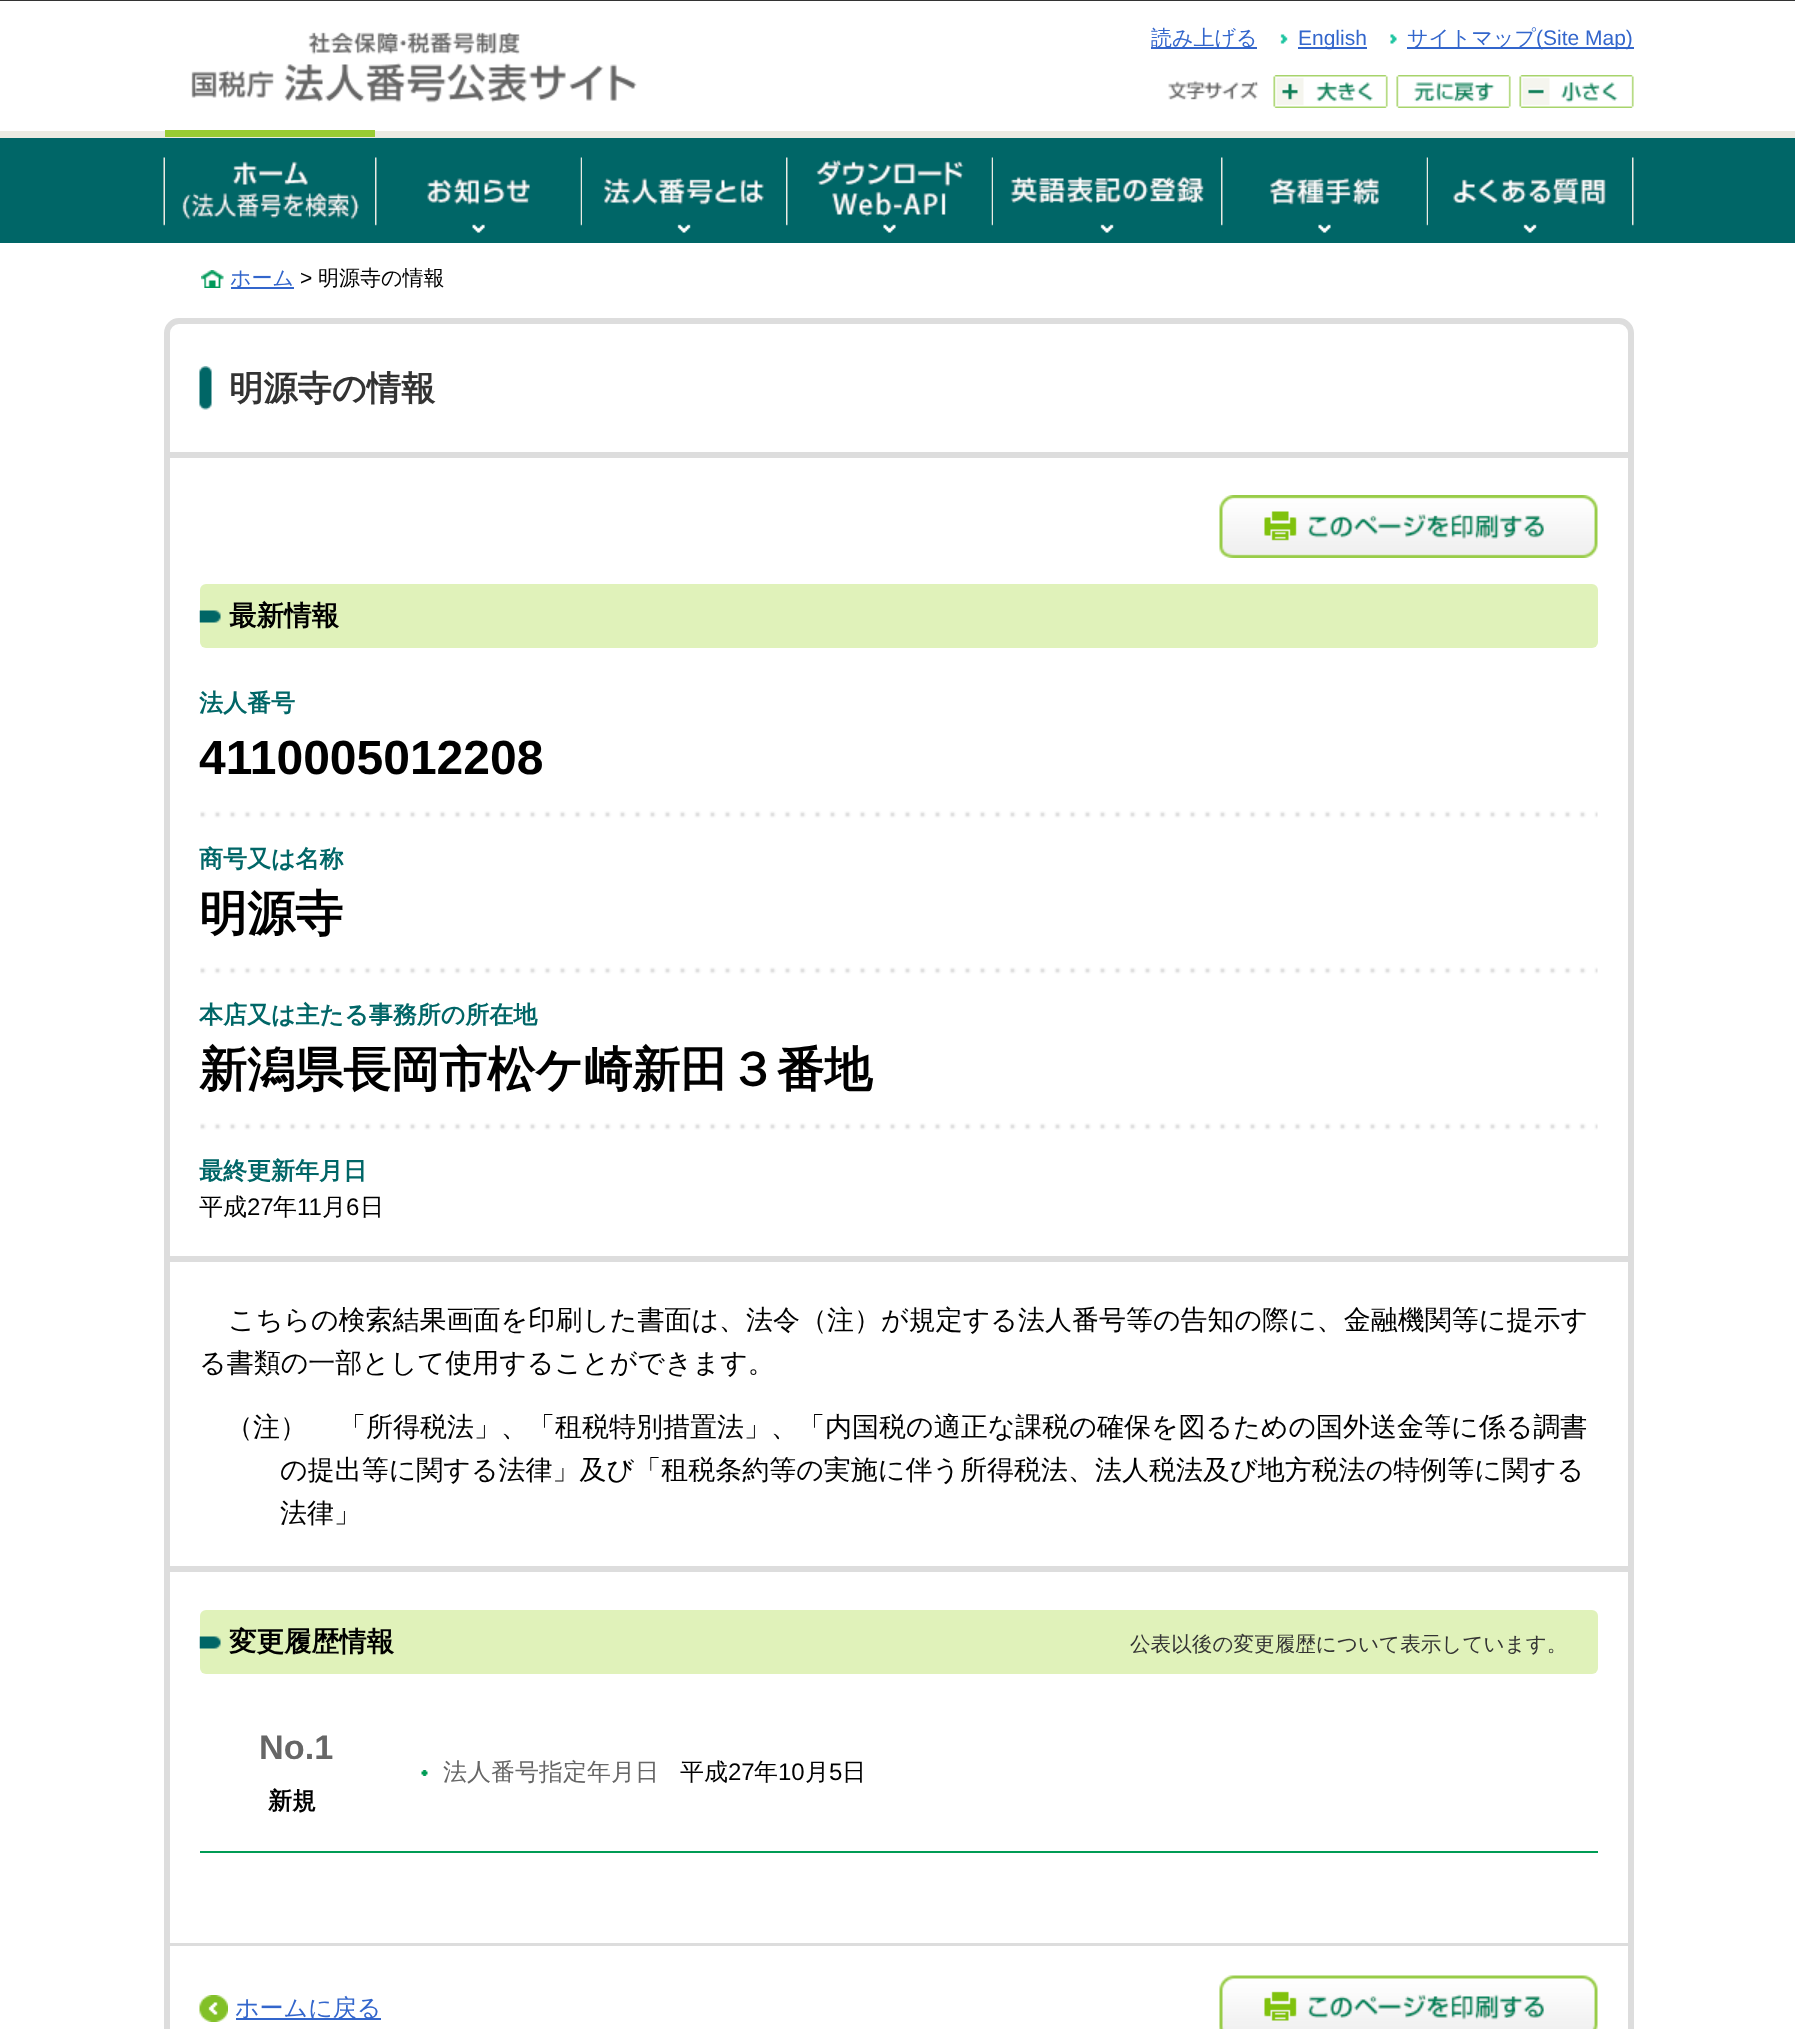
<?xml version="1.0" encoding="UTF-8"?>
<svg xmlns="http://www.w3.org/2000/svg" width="1795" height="2029">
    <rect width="100%" height="100%" fill="#FFFFFF"/>
    <rect x="0" y="0" width="1795" height="1" fill="#333333"/>
    <image x="191" y="32" width="446" height="71" href="img_01.png"/>
    <rect x="1151" y="47" width="106" height="2" fill="#3366CC"/>
    <text x="1151" y="45" font-family="WenQuanYi Zen Hei" font-size="21" font-weight="500" fill="#3366CC">読み上げる</text>
    <image x="1280" y="34" width="8" height="10" href="img_02.png"/>
    <rect x="1298" y="47" width="69" height="2" fill="#3366CC"/>
    <text x="1298" y="45" font-family="Liberation Sans" font-size="21" fill="#3366CC">English</text>
    <image x="1390" y="34" width="7" height="10" href="img_03.png"/>
    <rect x="1407" y="47" width="227" height="2" fill="#3366CC"/>
    <text x="1407" y="45" font-family="WenQuanYi Zen Hei" font-size="21" font-weight="500" fill="#3366CC">サイトマップ</text>
    <text x="1536" y="45" font-family="Liberation Sans" font-size="21" fill="#3366CC">(Site Map)</text>
    <image x="1168" y="80" width="91" height="20" href="img_04.png"/>
    <image x="1273" y="75" width="115" height="33" href="img_05.png"/>
    <image x="1396" y="75" width="115" height="33" href="img_06.png"/>
    <image x="1519" y="75" width="115" height="33" href="img_07.png"/>
    <rect x="0" y="138" width="1795" height="105" fill="#006667"/>
    <image x="1632" y="157" width="2" height="69" href="img_08.png"/>
    <image x="163" y="157" width="2" height="69" href="img_09.png"/>
    <rect x="0" y="131" width="1795" height="7" fill="#EBEBE3"/>
    <rect x="165" y="130" width="210" height="7" fill="#99CC33"/>
    <image x="165" y="157" width="194" height="69" href="img_10.png"/>
    <image x="375" y="157" width="2" height="69" href="img_11.png"/>
    <image x="580" y="157" width="2" height="69" href="img_09.png"/>
    <image x="376" y="157" width="205" height="76" href="img_12.png"/>
    <image x="582" y="157" width="182" height="76" href="img_13.png"/>
    <image x="786" y="157" width="2" height="69" href="img_11.png"/>
    <image x="991" y="157" width="2" height="69" href="img_09.png"/>
    <image x="787" y="157" width="205" height="76" href="img_14.png"/>
    <image x="993" y="157" width="211" height="76" href="img_15.png"/>
    <image x="1221" y="157" width="2" height="69" href="img_11.png"/>
    <image x="1426" y="157" width="2" height="69" href="img_09.png"/>
    <image x="1222" y="157" width="205" height="76" href="img_16.png"/>
    <image x="1428" y="157" width="178" height="76" href="img_17.png"/>
    <image x="201" y="270" width="23" height="18" href="img_18.png"/>
    <rect x="231" y="287" width="63" height="2" fill="#3366CC"/>
    <text x="230" y="285" font-family="WenQuanYi Zen Hei" font-size="21" font-weight="500" fill="#3366CC">ホーム</text>
    <text x="300" y="285" font-family="Liberation Sans" font-size="21" fill="#000000">&gt;</text>
    <text x="318" y="285" font-family="WenQuanYi Zen Hei" font-size="21" font-weight="500" fill="#000000">明源寺の情報</text>
    <rect x="167" y="321" width="1464" height="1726" rx="12" fill="none" stroke="#DDDDDD" stroke-width="6"/>
    <image x="199" y="366" width="13" height="44" href="img_19.png"/>
    <rect x="170" y="452" width="1458" height="6" fill="#DDDDDD"/>
    <text x="229" y="400" font-family="WenQuanYi Zen Hei" font-size="34.25" font-weight="700" fill="#333333">明源寺の情報</text>
    <rect x="170" y="1256" width="1458" height="6" fill="#DDDDDD"/>
    <image x="1219" y="495" width="379" height="63" href="img_20.png"/>
    <rect x="200" y="584" width="1398" height="64" rx="6" fill="#E0F2BA"/>
    <image x="199" y="610" width="22" height="13" href="img_21.png"/>
    <text x="229" y="625" font-family="WenQuanYi Zen Hei" font-size="27.5" font-weight="700" fill="#000000">最新情報</text>
    <text x="199" y="711" font-family="WenQuanYi Zen Hei" font-size="24" font-weight="700" fill="#006667">法人番号</text>
    <image x="200" y="811" width="1398" height="7" href="img_22.png"/>
    <text x="199" y="774" font-family="Liberation Sans" font-size="48" font-weight="700" fill="#000000">4110005012208</text>
    <text x="199" y="867" font-family="WenQuanYi Zen Hei" font-size="24" font-weight="700" fill="#006667">商号又は名称</text>
    <image x="200" y="967" width="1398" height="7" href="img_22.png"/>
    <text x="199" y="930" font-family="WenQuanYi Zen Hei" font-size="48" font-weight="700" fill="#000000">明源寺</text>
    <text x="199" y="1023" font-family="WenQuanYi Zen Hei" font-size="24" font-weight="700" fill="#006667">本店又は主たる事務所の所在地</text>
    <image x="200" y="1123" width="1398" height="7" href="img_23.png"/>
    <text x="199" y="1086" font-family="WenQuanYi Zen Hei" font-size="48" font-weight="700" fill="#000000">新潟県長岡市松ケ崎新田３番地</text>
    <text x="199" y="1179" font-family="WenQuanYi Zen Hei" font-size="24" font-weight="700" fill="#006667">最終更新年月日</text>
    <text x="199" y="1215" font-family="WenQuanYi Zen Hei" font-size="24" font-weight="500" fill="#000000">平成</text>
    <text x="247" y="1215" font-family="Liberation Sans" font-size="24" fill="#000000">27</text>
    <text x="273" y="1215" font-family="WenQuanYi Zen Hei" font-size="24" font-weight="500" fill="#000000">年</text>
    <text x="297" y="1215" font-family="Liberation Sans" font-size="24" fill="#000000">11</text>
    <text x="322" y="1215" font-family="WenQuanYi Zen Hei" font-size="24" font-weight="500" fill="#000000">月</text>
    <text x="346" y="1215" font-family="Liberation Sans" font-size="24" fill="#000000">6</text>
    <text x="360" y="1215" font-family="WenQuanYi Zen Hei" font-size="24" font-weight="500" fill="#000000">日</text>
    <rect x="170" y="1566" width="1458" height="6" fill="#DDDDDD"/>
    <text x="228" y="1329" font-family="WenQuanYi Zen Hei" font-size="27" font-weight="500" fill="#000000">こちらの検索結果画面を印刷した書面は、法令（注）が規定する法人番号等の告知の際に、金融機関等に提示す</text>
    <text x="199" y="1372" font-family="WenQuanYi Zen Hei" font-size="27" font-weight="500" fill="#000000">る書類の一部として使用することができます。</text>
    <text x="226" y="1436" font-family="WenQuanYi Zen Hei" font-size="27" font-weight="500" fill="#000000">（注）</text>
    <text x="339" y="1436" font-family="WenQuanYi Zen Hei" font-size="27" font-weight="500" fill="#000000">「所得税法」、「租税特別措置法」、「内国税の適正な課税の確保を図るための国外送金等に係る調書</text>
    <text font-family="WenQuanYi Zen Hei" font-size="27" font-weight="500" fill="#000000">
        <tspan x="280" y="1479">の提出等に関する法律」及び「租税条約等の実施に伴う所得税法、法人税法及び地方税法の特例等に関する</tspan>
        <tspan x="280" y="1522">法律」</tspan>
    </text>
    <rect x="200" y="1610" width="1398" height="64" rx="6" fill="#E0F2BA"/>
    <image x="199" y="1636" width="22" height="13" href="img_21.png"/>
    <text x="229" y="1651" font-family="WenQuanYi Zen Hei" font-size="27.5" font-weight="700" fill="#000000">変更履歴情報</text>
    <text x="1130" y="1651" font-family="WenQuanYi Zen Hei" font-size="20.6" font-weight="500" fill="#333333">公表以後の変更履歴について表示しています。</text>
    <rect x="200" y="1851" width="1398" height="2" fill="#009C55"/>
    <text x="259" y="1759" font-family="Liberation Sans" font-size="34.25" font-weight="700" fill="#666666">No.1</text>
    <text x="268" y="1809" font-family="WenQuanYi Zen Hei" font-size="24" font-weight="700" fill="#000000">新規</text>
    <image x="421" y="1770" width="7" height="6" href="img_24.png"/>
    <text x="443" y="1780" font-family="WenQuanYi Zen Hei" font-size="24" font-weight="500" fill="#666666">法人番号指定年月日</text>
    <text x="680" y="1780" font-family="WenQuanYi Zen Hei" font-size="24" font-weight="500" fill="#000000">平成</text>
    <text x="728" y="1780" font-family="Liberation Sans" font-size="24" fill="#000000">27</text>
    <text x="754" y="1780" font-family="WenQuanYi Zen Hei" font-size="24" font-weight="500" fill="#000000">年</text>
    <text x="778" y="1780" font-family="Liberation Sans" font-size="24" fill="#000000">10</text>
    <text x="805" y="1780" font-family="WenQuanYi Zen Hei" font-size="24" font-weight="500" fill="#000000">月</text>
    <text x="829" y="1780" font-family="Liberation Sans" font-size="24" fill="#000000">5</text>
    <text x="842" y="1780" font-family="WenQuanYi Zen Hei" font-size="24" font-weight="500" fill="#000000">日</text>
    <rect x="170" y="1943" width="1458" height="3" fill="#DDDDDD"/>
    <image x="199" y="1995" width="29" height="27" href="img_25.png"/>
    <rect x="236" y="2018" width="145" height="2" fill="#3366CC"/>
    <text x="235" y="2016" font-family="WenQuanYi Zen Hei" font-size="24" font-weight="500" fill="#3366CC">ホームに戻る</text>
    <image x="1219" y="1975" width="379" height="54" href="img_26.png"/>
</svg>
